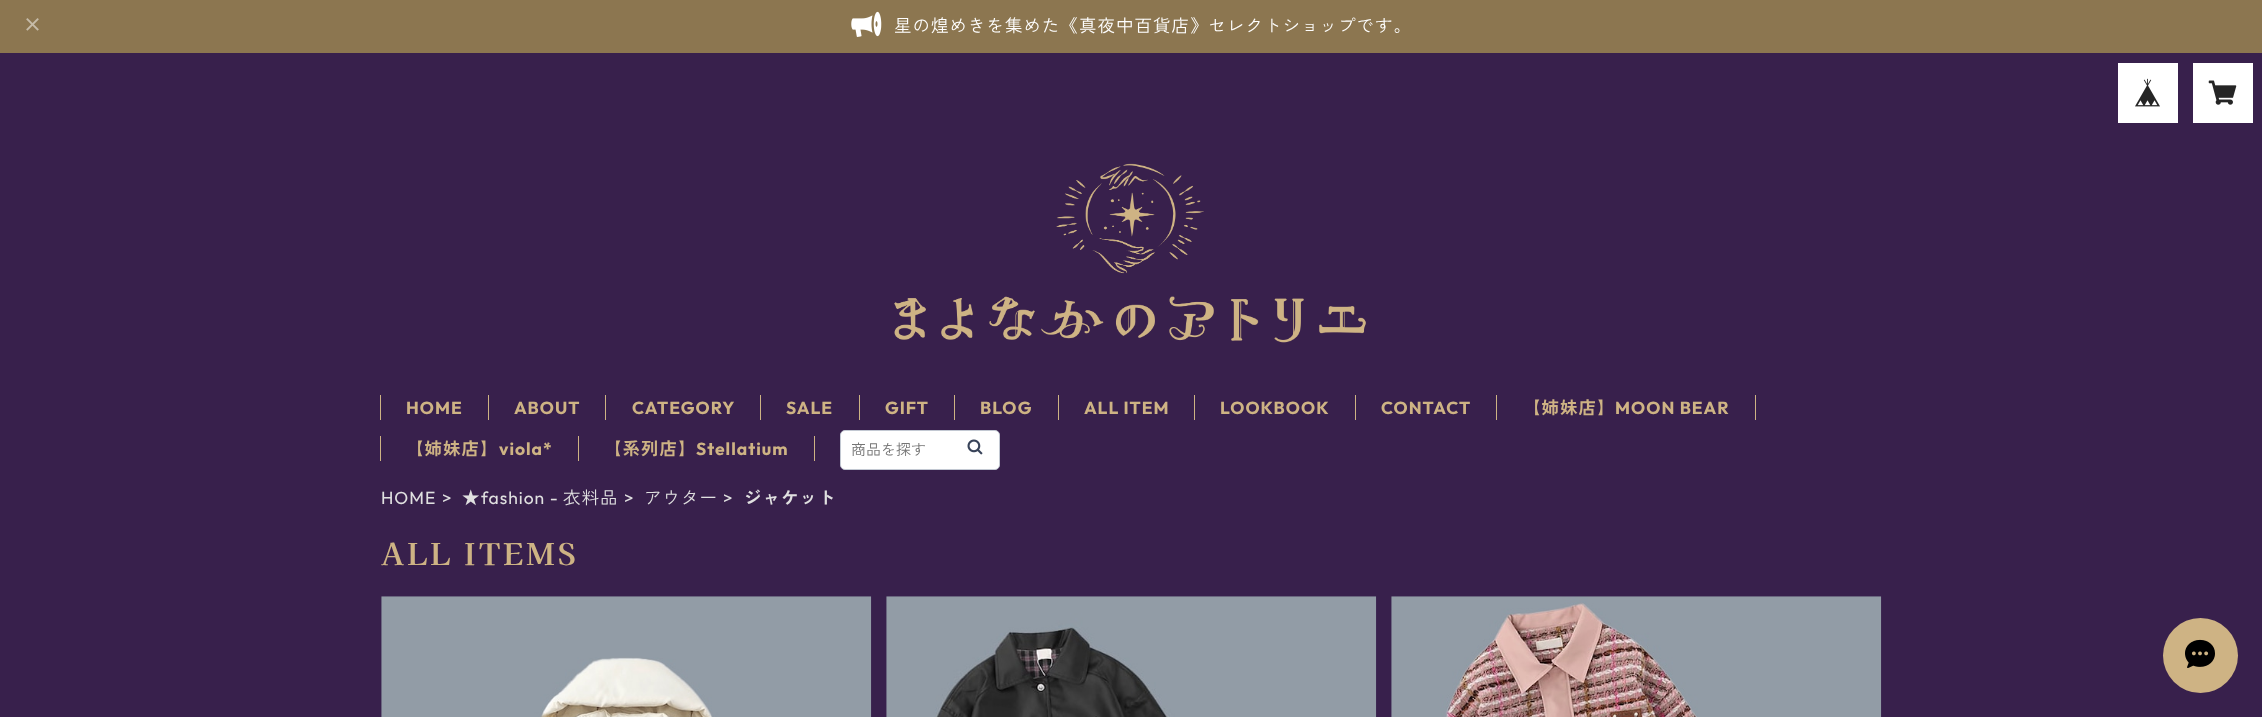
<?xml version="1.0" encoding="UTF-8"?>
<svg xmlns="http://www.w3.org/2000/svg" width="2262" height="717">
    <rect width="100%" height="100%" fill="#38204C"/>
    <rect x="0" y="0" width="2262" height="53" fill="#8C7650"/>
    <image x="26" y="18" width="13" height="13" href="img_01.png"/>
    <image x="851" y="11" width="31" height="26" href="img_02.png"/>
    <text x="894" y="32" font-family="Zen Kaku Gothic New" font-size="17.5" letter-spacing="1" fill="#FFFFFF">星の煌めきを集めた《真夜中百貨店》セレクトショップです。</text>
    <rect x="2118" y="63" width="60" height="60" fill="#FFFFFF"/>
    <image x="2135" y="78" width="25" height="29" href="img_03.png"/>
    <rect x="2193" y="63" width="60" height="60" fill="#FFFFFF"/>
    <image x="2208" y="80" width="29" height="25" href="img_04.png"/>
    <image x="894" y="163" width="472" height="180" href="img_05.png"/>
    <rect x="488" y="395" width="1" height="25" fill="#CEB384"/>
    <rect x="380" y="395" width="1" height="25" fill="#CEB384"/>
    <text x="406" y="414" font-family="Outfit" font-size="17.5" font-weight="700" letter-spacing="1" fill="#CEB384">HOME</text>
    <rect x="605" y="395" width="1" height="25" fill="#CEB384"/>
    <text x="514" y="414" font-family="Outfit" font-size="17.5" font-weight="700" letter-spacing="1" fill="#CEB384">ABOUT</text>
    <rect x="760" y="395" width="1" height="25" fill="#CEB384"/>
    <text x="632" y="414" font-family="Outfit" font-size="17.5" font-weight="700" letter-spacing="1" fill="#CEB384">CATEGORY</text>
    <rect x="859" y="395" width="1" height="25" fill="#CEB384"/>
    <text x="786" y="414" font-family="Outfit" font-size="17.5" font-weight="700" letter-spacing="1" fill="#CEB384">SALE</text>
    <rect x="954" y="395" width="1" height="25" fill="#CEB384"/>
    <text x="885" y="414" font-family="Outfit" font-size="17.5" font-weight="700" letter-spacing="1" fill="#CEB384">GIFT</text>
    <rect x="1058" y="395" width="1" height="25" fill="#CEB384"/>
    <text x="980" y="414" font-family="Outfit" font-size="17.5" font-weight="700" letter-spacing="1" fill="#CEB384">BLOG</text>
    <rect x="1194" y="395" width="1" height="25" fill="#CEB384"/>
    <text x="1084" y="414" font-family="Outfit" font-size="17.5" font-weight="700" letter-spacing="1" fill="#CEB384">ALL ITEM</text>
    <rect x="1355" y="395" width="1" height="25" fill="#CEB384"/>
    <text x="1220" y="414" font-family="Outfit" font-size="17.5" font-weight="700" letter-spacing="1" fill="#CEB384">LOOKBOOK</text>
    <rect x="1496" y="395" width="1" height="25" fill="#CEB384"/>
    <text x="1381" y="414" font-family="Outfit" font-size="17.5" font-weight="700" letter-spacing="1" fill="#CEB384">CONTACT</text>
    <rect x="1755" y="395" width="1" height="25" fill="#CEB384"/>
    <text x="1523" y="414" font-family="Zen Kaku Gothic New" font-size="17.5" font-weight="700" letter-spacing="1" fill="#CEB384">【姉妹店】</text>
    <text x="1615" y="414" font-family="Outfit" font-size="17.5" font-weight="700" letter-spacing="1" fill="#CEB384">MOON BEAR</text>
    <rect x="578" y="436" width="1" height="25" fill="#CEB384"/>
    <rect x="380" y="436" width="1" height="25" fill="#CEB384"/>
    <text x="406" y="455" font-family="Zen Kaku Gothic New" font-size="17.5" font-weight="700" letter-spacing="1" fill="#CEB384">【姉妹店】</text>
    <text x="499" y="455" font-family="Outfit" font-size="17.5" font-weight="700" letter-spacing="1" fill="#CEB384">viola*</text>
    <rect x="814" y="436" width="1" height="25" fill="#CEB384"/>
    <text x="604" y="455" font-family="Zen Kaku Gothic New" font-size="17.5" font-weight="700" letter-spacing="1" fill="#CEB384">【系列店】</text>
    <text x="696" y="455" font-family="Outfit" font-size="17.5" font-weight="700" letter-spacing="1" fill="#CEB384">Stellatium</text>
    <rect x="840.5" y="430.5" width="159" height="39" rx="4.5" fill="#FFFFFF" stroke="#C2C8D2"/>
    <text x="851" y="455" font-family="Zen Kaku Gothic New" font-size="15" fill="#757575">商品を探す</text>
    <image x="967" y="439" width="16" height="16" href="img_06.png"/>
    <text x="381" y="504" font-family="Outfit" font-size="17.5" letter-spacing="1" fill="#E0E0E0">HOME</text>
    <text x="442" y="504" font-family="Outfit" font-size="17.5" letter-spacing="1" fill="#E0E0E0">&gt;</text>
    <text x="462" y="504" font-family="Zen Kaku Gothic New" font-size="17.5" letter-spacing="1" fill="#E0E0E0">★</text>
    <text x="481" y="504" font-family="Outfit" font-size="17.5" letter-spacing="1" fill="#E0E0E0">fashion -</text>
    <text x="563" y="504" font-family="Zen Kaku Gothic New" font-size="17.5" letter-spacing="1" fill="#E0E0E0">衣料品</text>
    <text x="624" y="504" font-family="Outfit" font-size="17.5" letter-spacing="1" fill="#E0E0E0">&gt;</text>
    <text x="644" y="504" font-family="Zen Kaku Gothic New" font-size="17.5" letter-spacing="1" fill="#E0E0E0">アウター</text>
    <text x="723" y="504" font-family="Outfit" font-size="17.5" letter-spacing="1" fill="#E0E0E0">&gt;</text>
    <text x="744" y="504" font-family="Zen Kaku Gothic New" font-size="17.5" font-weight="700" letter-spacing="1" fill="#E0E0E0">ジャケット</text>
    <text x="381" y="565" font-family="Kaisei Opti" font-size="30" font-weight="700" letter-spacing="3" fill="#CEB384">ALL ITEMS</text>
    <image x="381" y="596" width="491" height="121" href="img_07.png"/>
    <image x="886" y="596" width="491" height="121" href="img_08.png"/>
    <image x="1391" y="596" width="491" height="121" href="img_09.png"/>
    <circle cx="2200.5" cy="655.5" r="37.5" fill="#CEB384"/>
    <image x="2185" y="639" width="30" height="29" href="img_10.png"/>
</svg>
